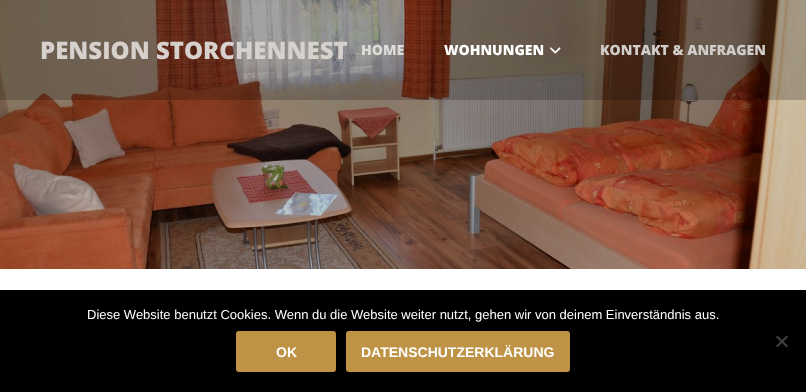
<?xml version="1.0" encoding="UTF-8"?>
<svg xmlns="http://www.w3.org/2000/svg" width="806" height="392">
    <rect width="100%" height="100%" fill="#FFFFFF"/>
    <image x="0" y="0" width="806" height="269" href="img_01.png"/>
    <rect x="0" y="0" width="806" height="100" fill="#000000" fill-opacity="0.2"/>
    <text x="40" y="59" font-family="Open Sans" font-size="24" font-weight="800" fill="#D7D1CE">PENSION STORCHENNEST</text>
    <text x="361" y="55" font-family="Open Sans" font-size="14" font-weight="800" fill="#DCDCDB">HOME</text>
    <text x="444" y="55" font-family="Open Sans" font-size="14" font-weight="800" fill="#FFFFFF">WOHNUNGEN</text>
    <image x="550" y="47" width="11" height="7" href="img_02.png"/>
    <text x="600" y="55" font-family="Open Sans" font-size="14" font-weight="800" fill="#D1CDCA">KONTAKT &amp; ANFRAGEN</text>
    <rect x="0" y="290" width="806" height="102" fill="#000000"/>
    <text x="87" y="319" font-family="Liberation Sans" font-size="13" fill="#FFFFFF">Diese Website benutzt Cookies. Wenn du die Website weiter nutzt, gehen wir von deinem Einverständnis aus.</text>
    <path d="M 786.5 335.5 L 788 337 L 777.5 347.5 L 776 346 Z" fill="#404040"/>
    <path d="M 776 337 L 777.5 335.5 L 788 346 L 786.5 347.5 Z" fill="#404040"/>
    <rect x="236" y="331" width="100" height="41" rx="3" fill="#BF9346"/>
    <text x="276" y="357" font-family="Liberation Sans" font-size="14" font-weight="700" fill="#FFFFFF">OK</text>
    <rect x="346" y="331" width="224" height="41" rx="3" fill="#BF9346"/>
    <text x="361" y="357" font-family="Liberation Sans" font-size="14" font-weight="700" fill="#FFFFFF">DATENSCHUTZERKLÄRUNG</text>
</svg>
